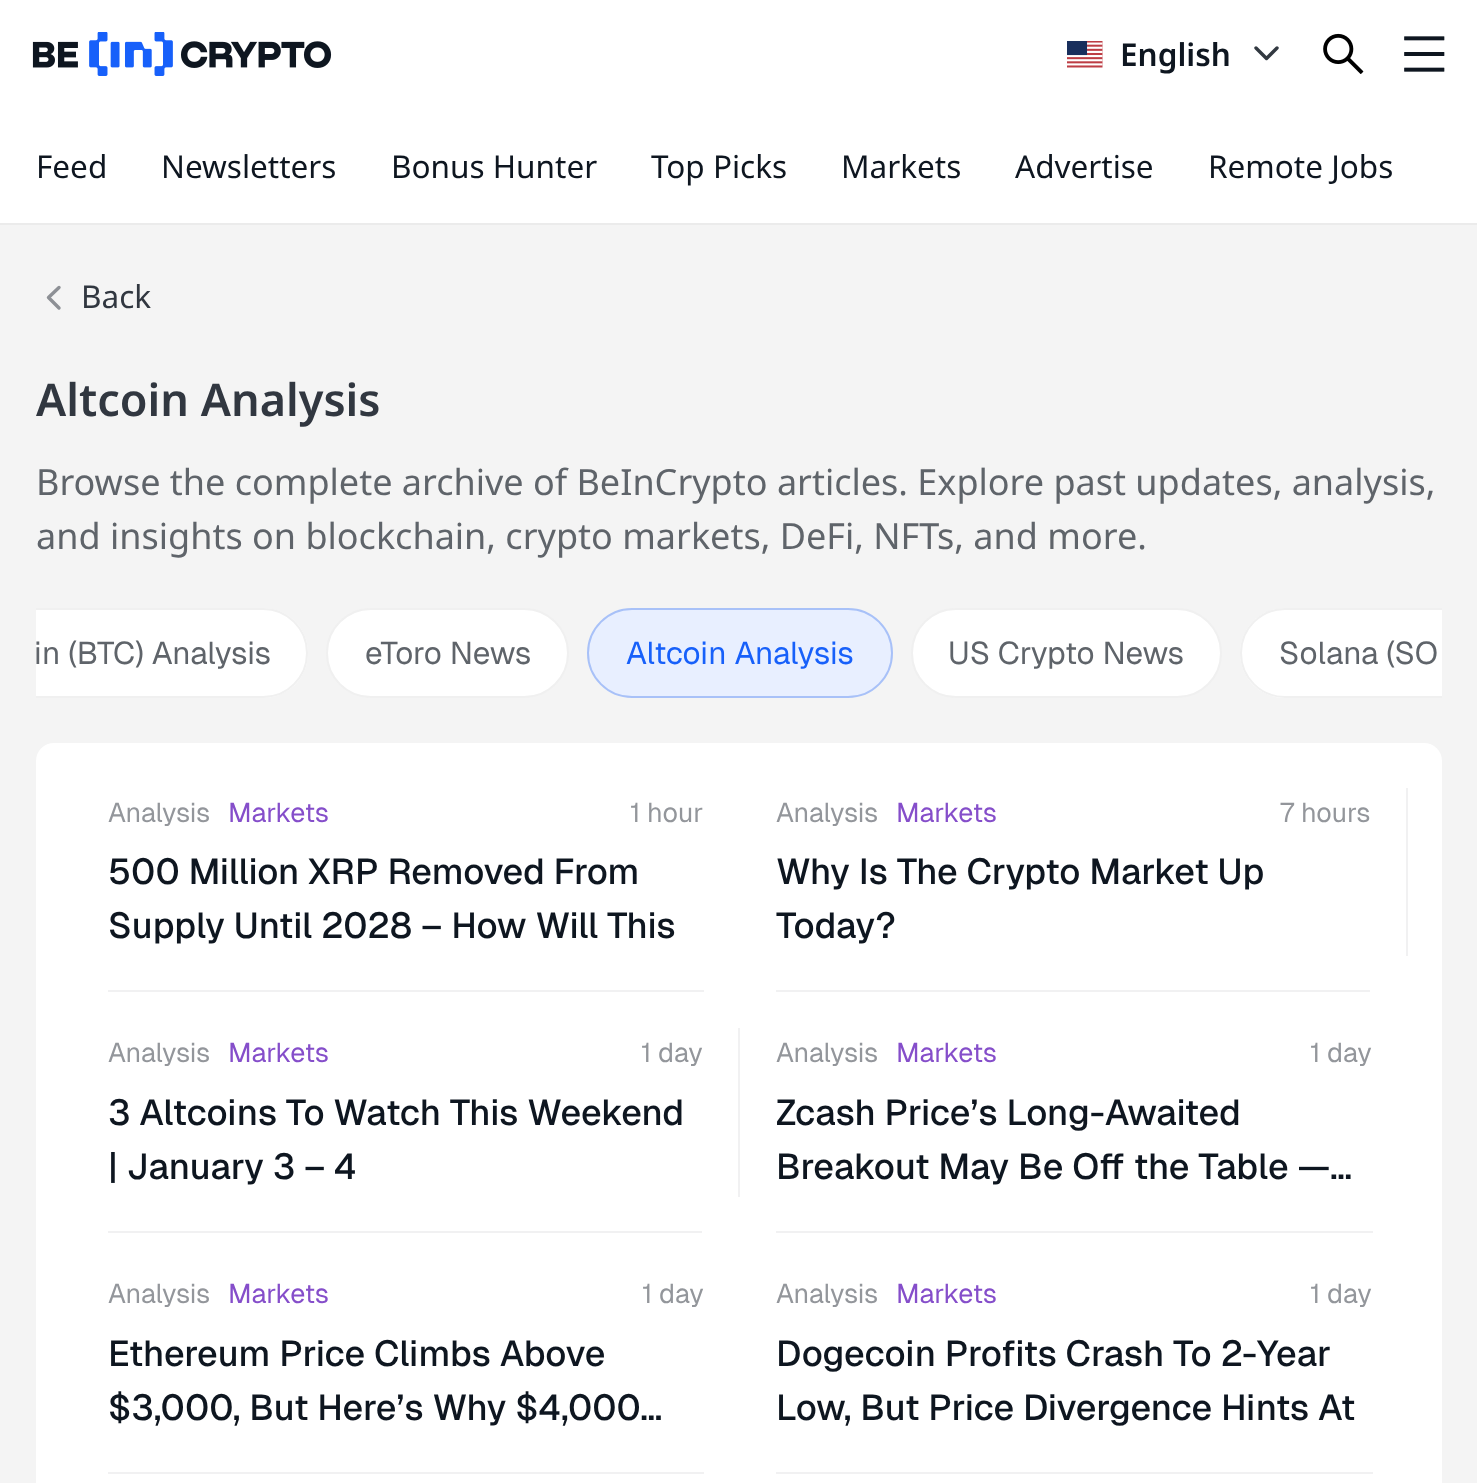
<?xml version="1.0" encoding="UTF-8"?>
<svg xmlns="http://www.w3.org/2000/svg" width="1477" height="1483">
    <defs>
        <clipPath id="clip1"><rect x="36" y="608" width="1406" height="90"/></clipPath>
    </defs>
    <rect width="100%" height="100%" fill="#F4F4F4"/>
    <rect x="0" y="0" width="1477" height="223" fill="#FFFFFF"/>
    <rect x="0" y="223" width="1477" height="2" fill="#EBEBEB"/>
    <image x="32" y="32" width="300" height="44" href="img_01.png"/>
    <image x="1067" y="41" width="36" height="27" href="img_02.png"/>
    <text x="1120" y="66" font-family="Noto Sans" font-size="31.5" font-weight="600" fill="#0E1620">English</text>
    <path d="M 1277 48 L 1266.5 58.5 L 1256 48" fill="none" stroke="#323941" stroke-width="3.4" stroke-linecap="round" stroke-linejoin="round"/>
    <image x="1323" y="33" width="41" height="41" href="img_03.png"/>
    <image x="1404" y="36" width="41" height="36" href="img_04.png"/>
    <text x="36" y="178" font-family="Noto Sans" font-size="31.5" fill="#0E1620">Feed</text>
    <text x="161" y="178" font-family="Noto Sans" font-size="31.5" fill="#0E1620">Newsletters</text>
    <text x="391" y="178" font-family="Noto Sans" font-size="31.5" fill="#0E1620">Bonus Hunter</text>
    <text x="651" y="178" font-family="Noto Sans" font-size="31.5" fill="#0E1620">Top Picks</text>
    <text x="841" y="178" font-family="Noto Sans" font-size="31.5" fill="#0E1620">Markets</text>
    <text x="1015" y="178" font-family="Noto Sans" font-size="31.5" fill="#0E1620">Advertise</text>
    <text x="1208" y="178" font-family="Noto Sans" font-size="31.5" fill="#0E1620">Remote Jobs</text>
    <path d="M 59 287.5 L 48.5 297.5 L 59 308" fill="none" stroke="#8D9095" stroke-width="3.4" stroke-linecap="round" stroke-linejoin="round"/>
    <text x="81" y="308" font-family="Noto Sans" font-size="31.5" fill="#313740">Back</text>
    <text x="36" y="416" font-family="Noto Sans" font-size="45" font-weight="600" fill="#313740">Altcoin Analysis</text>
    <text font-family="Noto Sans" font-size="36" fill="#5F646A">
        <tspan x="36" y="495">Browse the complete archive of BeInCrypto articles. Explore past updates, analysis,</tspan>
        <tspan x="36" y="549">and insights on blockchain, crypto markets, DeFi, NFTs, and more.</tspan>
    </text>
    <path d="M 36 608 H 263 C 288 608 308 628 308 653 C 308 678 288 698 263 698 H 36 Z" fill="#FFFFFF"/>
    <g clip-path="url(#clip1)">
        <rect x="-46" y="609" width="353" height="88" rx="44" fill="none" stroke="#F0F0F0" stroke-width="2"/>
    </g>
    <text x="34" y="664" font-family="Geist" font-size="31.5" fill="#5F646A">in (BTC) Analysis</text>
    <rect x="327" y="609" width="241" height="88" rx="44" fill="#FFFFFF" stroke="#F0F0F0" stroke-width="2"/>
    <text x="365" y="664" font-family="Geist" font-size="31.5" fill="#5F646A">eToro News</text>
    <rect x="588" y="609" width="304" height="88" rx="44" fill="#E8EFFF" stroke="#A8C1F8" stroke-width="2"/>
    <text x="626" y="664" font-family="Geist" font-size="31.5" fill="#1760FA">Altcoin Analysis</text>
    <rect x="912" y="609" width="309" height="88" rx="44" fill="#FFFFFF" stroke="#F0F0F0" stroke-width="2"/>
    <text x="948" y="664" font-family="Geist" font-size="31.5" fill="#5F646A">US Crypto News</text>
    <path d="M 1285 608 H 1442 V 698 H 1285 C 1260 698 1240 678 1240 653 C 1240 628 1260 608 1285 608 Z" fill="#FFFFFF"/>
    <g clip-path="url(#clip1)">
        <rect x="1241" y="609" width="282" height="88" rx="44" fill="none" stroke="#F0F0F0" stroke-width="2"/>
    </g>
    <text x="1279" y="664" font-family="Geist" font-size="31.5" fill="#5F646A">Solana (SO</text>
    <rect x="36" y="743" width="1406" height="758" rx="18" fill="#FFFFFF"/>
    <text x="108" y="822" font-family="Geist" font-size="27" fill="#93969B">Analysis</text>
    <text x="228" y="822" font-family="Geist" font-size="27" fill="#854ECA">Markets</text>
    <text x="630" y="822" font-family="Geist" font-size="27" fill="#93969B">1 hour</text>
    <text font-family="Geist" font-size="36" font-weight="500" fill="#0E1620">
        <tspan x="108" y="884">500 Million XRP Removed From</tspan>
        <tspan x="108" y="938">Supply Until 2028 – How Will This</tspan>
    </text>
    <rect x="108" y="990" width="596" height="2" fill="#F1F1F2"/>
    <text x="776" y="822" font-family="Geist" font-size="27" fill="#93969B">Analysis</text>
    <text x="896" y="822" font-family="Geist" font-size="27" fill="#854ECA">Markets</text>
    <text x="1280" y="822" font-family="Geist" font-size="27" fill="#93969B">7 hours</text>
    <text font-family="Geist" font-size="36" font-weight="500" fill="#0E1620">
        <tspan x="776" y="884">Why Is The Crypto Market Up</tspan>
        <tspan x="776" y="938">Today?</tspan>
    </text>
    <rect x="776" y="990" width="594" height="2" fill="#F1F1F2"/>
    <rect x="1406" y="788" width="2" height="168" fill="#F1F1F2"/>
    <text x="108" y="1062" font-family="Geist" font-size="27" fill="#93969B">Analysis</text>
    <text x="228" y="1062" font-family="Geist" font-size="27" fill="#854ECA">Markets</text>
    <text x="641" y="1062" font-family="Geist" font-size="27" fill="#93969B">1 day</text>
    <text font-family="Geist" font-size="36" font-weight="500" fill="#0E1620">
        <tspan x="108" y="1125">3 Altcoins To Watch This Weekend</tspan>
        <tspan x="108" y="1179">| January 3 – 4</tspan>
    </text>
    <rect x="108" y="1231" width="594" height="2" fill="#F1F1F2"/>
    <rect x="738" y="1028" width="2" height="169" fill="#F1F1F2"/>
    <text x="776" y="1062" font-family="Geist" font-size="27" fill="#93969B">Analysis</text>
    <text x="896" y="1062" font-family="Geist" font-size="27" fill="#854ECA">Markets</text>
    <text x="1310" y="1062" font-family="Geist" font-size="27" fill="#93969B">1 day</text>
    <text font-family="Geist" font-size="36" font-weight="500" fill="#0E1620">
        <tspan x="776" y="1125">Zcash Price’s Long-Awaited</tspan>
        <tspan x="776" y="1179">Breakout May Be Off the Table —…</tspan>
    </text>
    <rect x="776" y="1231" width="597" height="2" fill="#F1F1F2"/>
    <text x="108" y="1303" font-family="Geist" font-size="27" fill="#93969B">Analysis</text>
    <text x="228" y="1303" font-family="Geist" font-size="27" fill="#854ECA">Markets</text>
    <text x="642" y="1303" font-family="Geist" font-size="27" fill="#93969B">1 day</text>
    <text font-family="Geist" font-size="36" font-weight="500" fill="#0E1620">
        <tspan x="108" y="1366">Ethereum Price Climbs Above</tspan>
        <tspan x="108" y="1420">$3,000, But Here’s Why $4,000…</tspan>
    </text>
    <rect x="108" y="1472" width="596" height="2" fill="#F1F1F2"/>
    <text x="776" y="1303" font-family="Geist" font-size="27" fill="#93969B">Analysis</text>
    <text x="896" y="1303" font-family="Geist" font-size="27" fill="#854ECA">Markets</text>
    <text x="1310" y="1303" font-family="Geist" font-size="27" fill="#93969B">1 day</text>
    <text font-family="Geist" font-size="36" font-weight="500" fill="#0E1620">
        <tspan x="776" y="1366">Dogecoin Profits Crash To 2-Year</tspan>
        <tspan x="776" y="1420">Low, But Price Divergence Hints At</tspan>
    </text>
    <rect x="776" y="1472" width="597" height="2" fill="#F1F1F2"/>
</svg>
